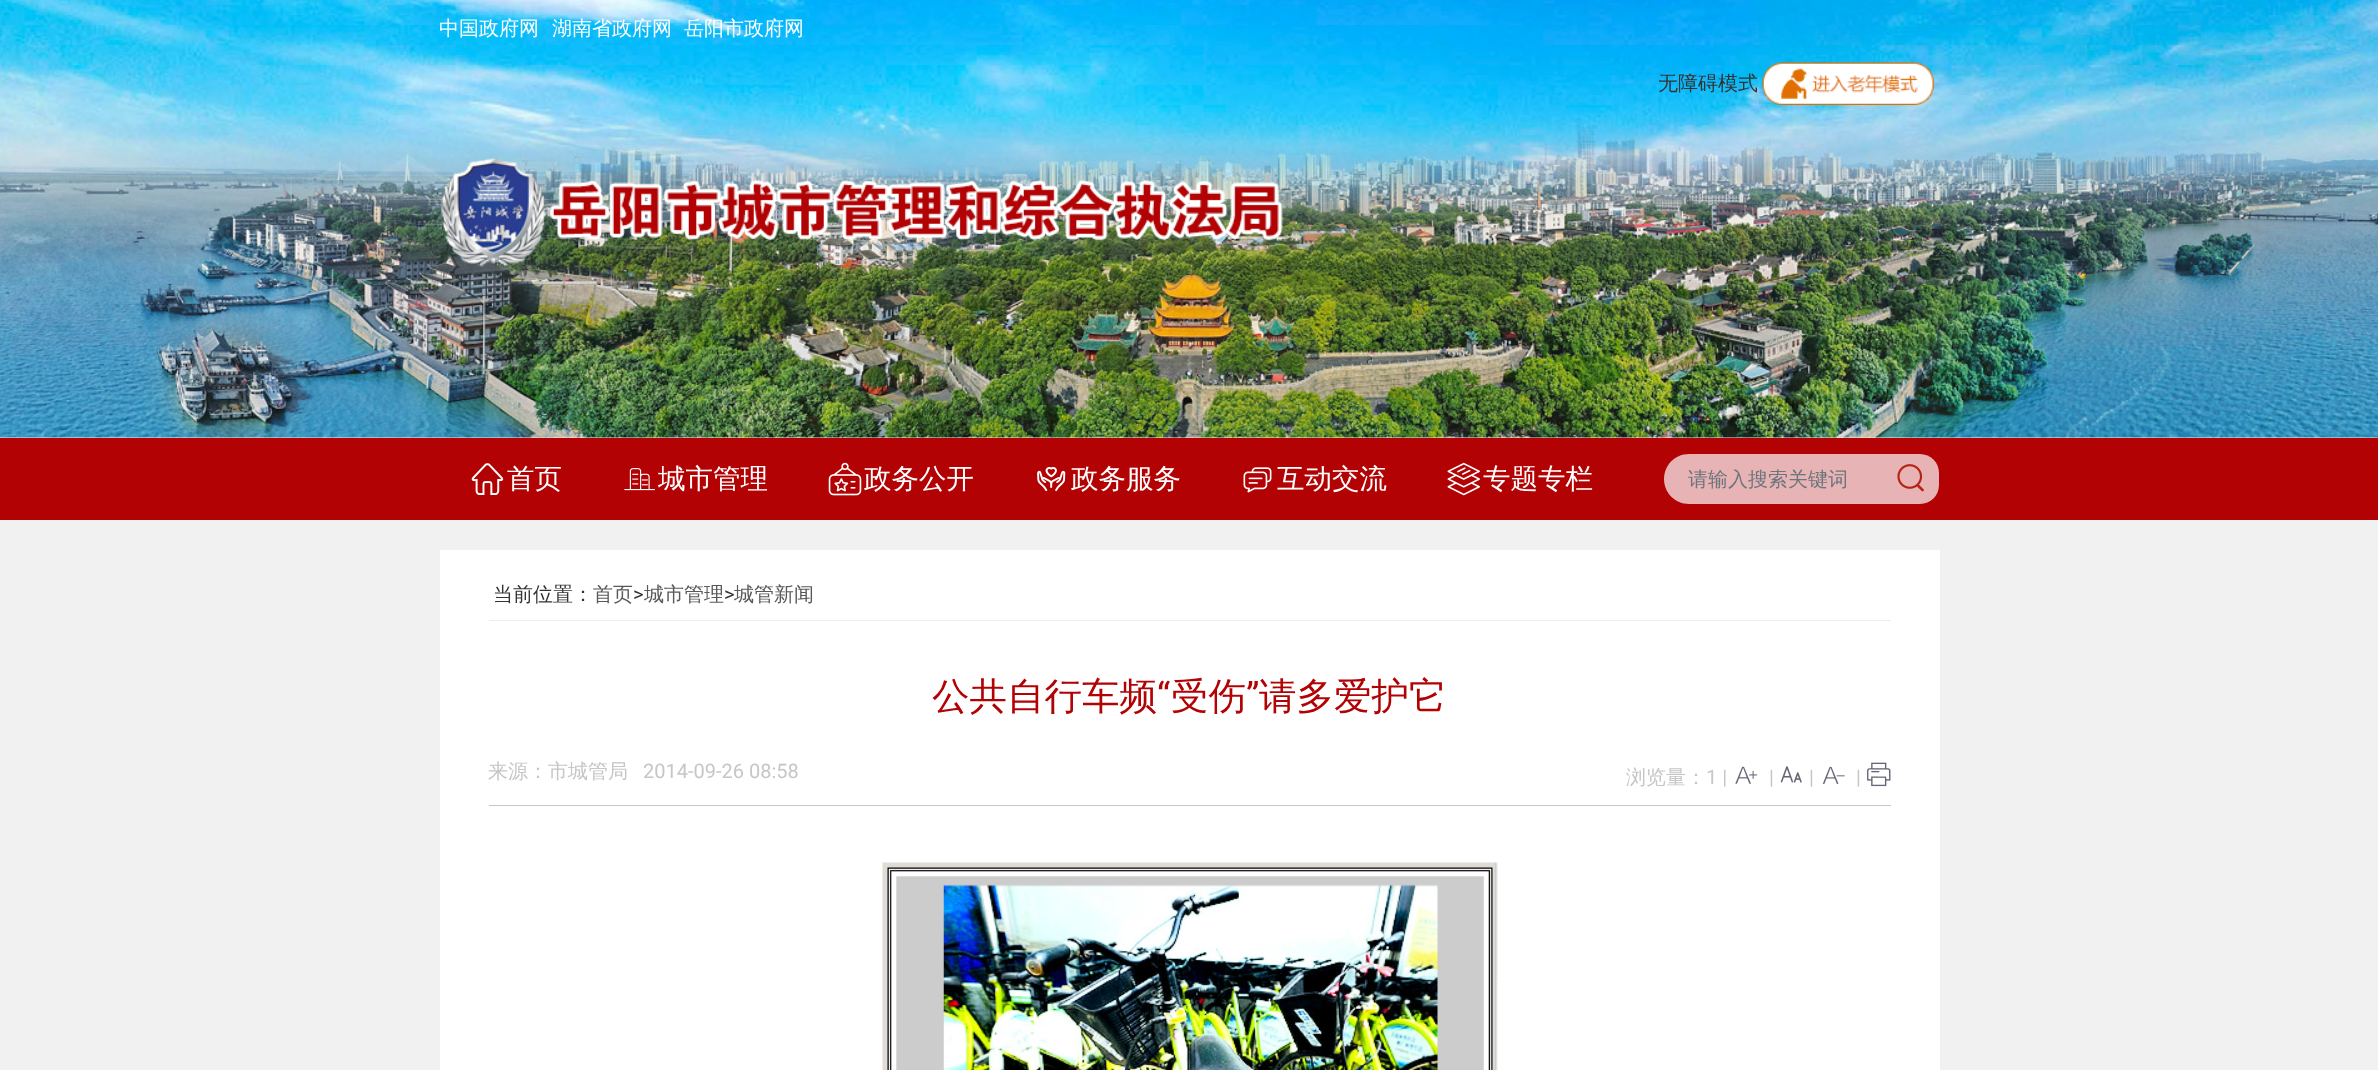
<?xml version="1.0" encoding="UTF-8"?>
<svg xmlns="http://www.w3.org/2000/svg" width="2378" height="1070">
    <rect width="100%" height="100%" fill="#F1F1F1"/>
    <image x="0" y="0" width="2378" height="438" href="img_01.png"/>
    <text x="439" y="35" font-family="WenQuanYi Zen Hei" font-size="20" font-weight="500" fill="#FFFFFF">中国政府网</text>
    <text x="552" y="35" font-family="WenQuanYi Zen Hei" font-size="20" font-weight="500" fill="#FFFFFF">湖南省政府网</text>
    <text x="684" y="35" font-family="WenQuanYi Zen Hei" font-size="20" font-weight="500" fill="#FFFFFF">岳阳市政府网</text>
    <text x="1658" y="90" font-family="WenQuanYi Zen Hei" font-size="20" font-weight="500" fill="#333333">无障碍模式</text>
    <image x="1762" y="62" width="172" height="43" href="img_02.png"/>
    <image x="440" y="158" width="843" height="110" href="img_03.png"/>
    <rect x="0" y="438" width="2378" height="82" fill="#B20204"/>
    <image x="471" y="463" width="33" height="32" href="img_04.png"/>
    <text x="507" y="488" font-family="WenQuanYi Zen Hei" font-size="27.5" font-weight="500" fill="#FFFFFF">首页</text>
    <image x="624" y="468" width="31" height="23" href="img_05.png"/>
    <text x="658" y="488" font-family="WenQuanYi Zen Hei" font-size="27.5" font-weight="500" fill="#FFFFFF">城市管理</text>
    <image x="828" y="462" width="34" height="34" href="img_06.png"/>
    <text x="864" y="488" font-family="WenQuanYi Zen Hei" font-size="27.5" font-weight="500" fill="#FFFFFF">政务公开</text>
    <image x="1037" y="467" width="29" height="25" href="img_07.png"/>
    <text x="1071" y="488" font-family="WenQuanYi Zen Hei" font-size="27.5" font-weight="500" fill="#FFFFFF">政务服务</text>
    <image x="1243" y="467" width="29" height="26" href="img_08.png"/>
    <text x="1277" y="488" font-family="WenQuanYi Zen Hei" font-size="27.5" font-weight="500" fill="#FFFFFF">互动交流</text>
    <image x="1447" y="462" width="33" height="34" href="img_09.png"/>
    <text x="1483" y="488" font-family="WenQuanYi Zen Hei" font-size="27.5" font-weight="500" fill="#FFFFFF">专题专栏</text>
    <path d="M 1689 454 H 1886 V 504 H 1689 C 1675 504 1664 493 1664 479 C 1664 465 1675 454 1689 454 Z" fill="#E8B3B4"/>
    <text x="1688" y="486" font-family="WenQuanYi Zen Hei" font-size="20" font-weight="500" fill="#6C757D">请输入搜索关键词</text>
    <path d="M 1886 454 H 1920 C 1930.5 454 1939 462.5 1939 473 V 485 C 1939 495.5 1930.5 504 1920 504 H 1886 Z" fill="#E8B3B4"/>
    <image x="1897" y="464" width="27" height="28" href="img_10.png"/>
    <rect x="440" y="550" width="1500" height="520" fill="#FFFFFF"/>
    <rect x="489" y="620" width="1402" height="1" fill="#EEEEEE"/>
    <text x="493" y="601" font-family="WenQuanYi Zen Hei" font-size="20" font-weight="500" fill="#333333">当前位置：</text>
    <text x="593" y="601" font-family="WenQuanYi Zen Hei" font-size="20" font-weight="500" fill="#595959">首页</text>
    <text x="633" y="601" font-family="Roboto" font-size="20" fill="#333333">&gt;</text>
    <text x="644" y="601" font-family="WenQuanYi Zen Hei" font-size="20" font-weight="500" fill="#595959">城市管理</text>
    <text x="724" y="601" font-family="Roboto" font-size="20" fill="#333333">&gt;</text>
    <text x="734" y="601" font-family="WenQuanYi Zen Hei" font-size="20" font-weight="500" fill="#595959">城管新闻</text>
    <text x="932" y="709" font-family="WenQuanYi Zen Hei" font-size="37.5" font-weight="500" fill="#B20204">公共自行车频</text>
    <text x="1157" y="709" font-family="Roboto" font-size="37.5" fill="#B20204">“</text>
    <text x="1171" y="709" font-family="WenQuanYi Zen Hei" font-size="37.5" font-weight="500" fill="#B20204">受伤</text>
    <text x="1246" y="709" font-family="Roboto" font-size="37.5" fill="#B20204">”</text>
    <text x="1259" y="709" font-family="WenQuanYi Zen Hei" font-size="37.5" font-weight="500" fill="#B20204">请多爱护它</text>
    <rect x="489" y="805" width="1402" height="1" fill="#C6C6C6"/>
    <text x="488" y="778" font-family="WenQuanYi Zen Hei" font-size="20" font-weight="500" fill="#C6C6C6">来源：市城管局</text>
    <text x="643" y="778" font-family="Roboto" font-size="20" fill="#C6C6C6">2014-09-26 08:58</text>
    <text x="1626" y="784" font-family="WenQuanYi Zen Hei" font-size="20" font-weight="500" fill="#C6C6C6">浏览量：</text>
    <text x="1706" y="784" font-family="Roboto" font-size="20" fill="#C6C6C6">1 |</text>
    <image x="1735" y="766" width="23" height="18" href="img_11.png"/>
    <text x="1769" y="784" font-family="Roboto" font-size="20" fill="#C6C6C6">|</text>
    <image x="1780" y="766" width="22" height="17" href="img_12.png"/>
    <text x="1809" y="784" font-family="Roboto" font-size="20" fill="#C6C6C6">|</text>
    <image x="1822" y="766" width="23" height="18" href="img_13.png"/>
    <text x="1856" y="784" font-family="Roboto" font-size="20" fill="#C6C6C6">|</text>
    <image x="1867" y="762" width="24" height="25" href="img_14.png"/>
    <image x="882" y="862" width="616" height="208" href="img_15.png"/>
</svg>
